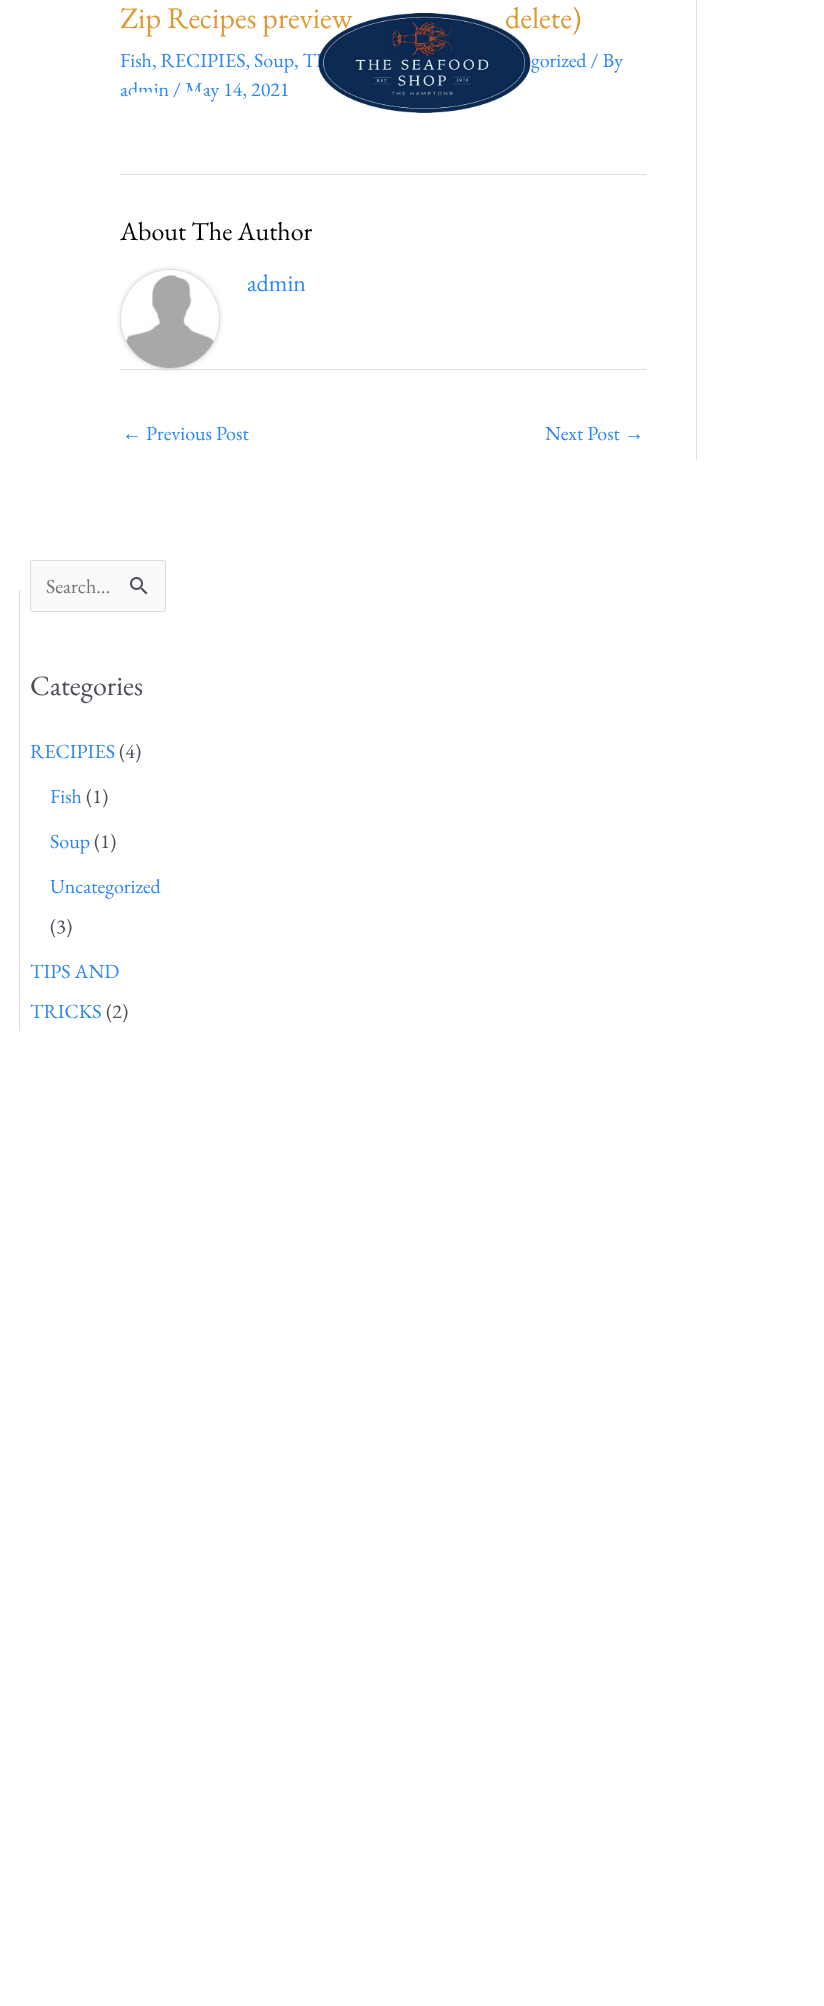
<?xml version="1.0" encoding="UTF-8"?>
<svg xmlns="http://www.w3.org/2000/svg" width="824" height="2006">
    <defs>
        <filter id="blur1" x="-50%" y="-200%" width="200%" height="500%"><feGaussianBlur stdDeviation="2.5"/></filter>
    </defs>
    <rect width="100%" height="100%" fill="#FFFFFF"/>
    <rect x="696" y="0" width="1" height="460" fill="#DDDDDD"/>
    <text x="120" y="28" font-family="EB Garamond" font-size="30" fill="#DD9933">Zip Recipes preview</text>
    <text x="505" y="28" font-family="EB Garamond" font-size="30" fill="#DD9933">delete)</text>
    <text x="120" y="67" font-family="EB Garamond" font-size="20" fill="#2C87F0">Fish, RECIPIES, Soup</text>
    <text x="294" y="67" font-family="EB Garamond" font-size="20" fill="#2C87F0">, TI</text>
    <text x="531" y="67" font-family="EB Garamond" font-size="20" fill="#2C87F0">gorized / By</text>
    <text x="120" y="96" font-family="EB Garamond" font-size="20" fill="#2C87F0">admin / May 14, 2021</text>
    <rect x="120" y="174" width="526" height="1" fill="#DDDDDD"/>
    <text x="120" y="240" font-family="EB Garamond" font-size="26" fill="#000000">About The Author</text>
    <rect x="120" y="269" width="100" height="100" rx="50" fill="#000000" fill-opacity="0.15" filter="url(#blur1)"/>
    <circle cx="170" cy="319" r="49.5" fill="none" stroke="#DDDDDD"/>
    <image x="121" y="270" width="98" height="98" href="img_01.png"/>
    <text x="247" y="291" font-family="EB Garamond" font-size="24" fill="#2C87F0">admin</text>
    <rect x="120" y="369" width="526" height="1" fill="#DDDDDD"/>
    <text x="122" y="440" font-family="Liberation Serif" font-size="20" fill="#2C87F0">←</text>
    <text x="146" y="440" font-family="EB Garamond" font-size="20" fill="#2C87F0">Previous Post</text>
    <text x="545" y="440" font-family="EB Garamond" font-size="20" fill="#2C87F0">Next Post</text>
    <text x="624" y="440" font-family="Liberation Serif" font-size="20" fill="#2C87F0">→</text>
    <rect x="19" y="590" width="1" height="441" fill="#DDDDDD"/>
    <rect x="30.5" y="560.5" width="135" height="51" rx="1.5" fill="#FAFAFA" stroke="#DDDDDD"/>
    <text x="46" y="593" font-family="EB Garamond" font-size="20" fill="#757575">Search...</text>
    <image x="130" y="577" width="18" height="18" href="img_02.png"/>
    <text x="30" y="695" font-family="EB Garamond" font-size="28" fill="#4B4F58">Categories</text>
    <text x="30" y="758" font-family="EB Garamond" font-size="20" fill="#2C87F0">RECIPIES</text>
    <text x="119" y="758" font-family="EB Garamond" font-size="20" fill="#4B4F58">(4)</text>
    <text x="50" y="803" font-family="EB Garamond" font-size="20" fill="#2C87F0">Fish</text>
    <text x="86" y="803" font-family="EB Garamond" font-size="20" fill="#4B4F58">(1)</text>
    <text x="50" y="848" font-family="EB Garamond" font-size="20" fill="#2C87F0">Soup</text>
    <text x="94" y="848" font-family="EB Garamond" font-size="20" fill="#4B4F58">(1)</text>
    <text x="50" y="893" font-family="EB Garamond" font-size="20" fill="#2C87F0">Uncategorized</text>
    <text x="50" y="933" font-family="EB Garamond" font-size="20" fill="#4B4F58">(3)</text>
    <text x="30" y="978" font-family="EB Garamond" font-size="20" fill="#2C87F0">TIPS AND</text>
    <text x="30" y="1018" font-family="EB Garamond" font-size="20" fill="#2C87F0">TRICKS</text>
    <text x="106" y="1018" font-family="EB Garamond" font-size="20" fill="#4B4F58">(2)</text>
    <image x="130" y="92" width="28" height="5" href="img_03.png"/>
    <image x="185" y="90" width="21" height="7" href="img_04.png"/>
    <image x="318" y="13" width="213" height="100" href="img_05.png"/>
</svg>
